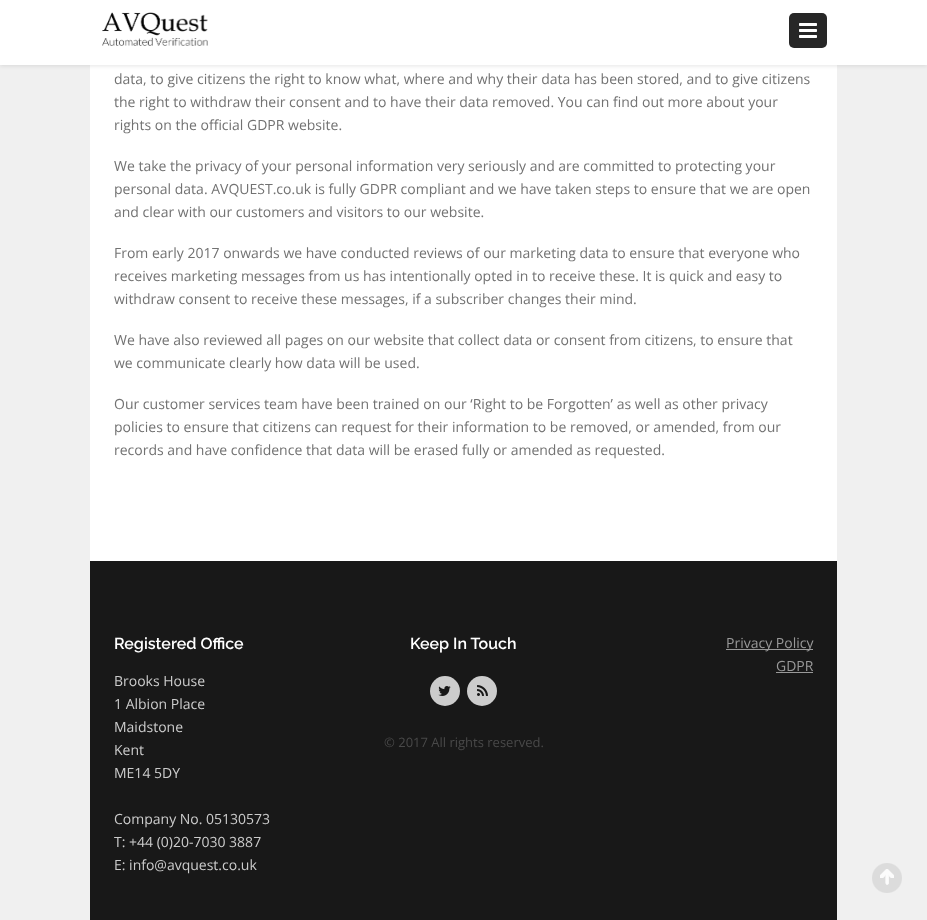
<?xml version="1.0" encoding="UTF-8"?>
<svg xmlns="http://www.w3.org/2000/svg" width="927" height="920">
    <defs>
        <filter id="blur1" x="-50%" y="-200%" width="200%" height="500%"><feGaussianBlur stdDeviation="2"/></filter>
    </defs>
    <rect width="100%" height="100%" fill="#F0F0F0"/>
    <rect x="90" y="65" width="747" height="496" fill="#FFFFFF"/>
    <rect x="0" y="1" width="927" height="65" fill="#000000" fill-opacity="0.1" filter="url(#blur1)"/>
    <rect x="0" y="0" width="927" height="65" fill="#FFFFFF"/>
    <image x="102" y="12" width="106" height="34" href="img_01.png"/>
    <rect x="789" y="13" width="38" height="35" rx="5" fill="#272727"/>
    <image x="799" y="23" width="18" height="15" href="img_02.png"/>
    <text font-family="Open Sans" font-size="14" fill="#727272">
        <tspan x="114" y="84">data, to give citizens the right to know what, where and why their data has been stored, and to give citizens</tspan>
        <tspan x="114" y="107">the right to withdraw their consent and to have their data removed. You can find out more about your</tspan>
        <tspan x="114" y="130">rights on the official GDPR website.</tspan>
    </text>
    <text font-family="Open Sans" font-size="14" fill="#727272">
        <tspan x="114" y="171">We take the privacy of your personal information very seriously and are committed to protecting your</tspan>
        <tspan x="114" y="194">personal data. AVQUEST.co.uk is fully GDPR compliant and we have taken steps to ensure that we are open</tspan>
        <tspan x="114" y="217">and clear with our customers and visitors to our website.</tspan>
    </text>
    <text font-family="Open Sans" font-size="14" fill="#727272">
        <tspan x="114" y="258">From early 2017 onwards we have conducted reviews of our marketing data to ensure that everyone who</tspan>
        <tspan x="114" y="281">receives marketing messages from us has intentionally opted in to receive these. It is quick and easy to</tspan>
        <tspan x="114" y="304">withdraw consent to receive these messages, if a subscriber changes their mind.</tspan>
    </text>
    <text font-family="Open Sans" font-size="14" fill="#727272">
        <tspan x="114" y="345">We have also reviewed all pages on our website that collect data or consent from citizens, to ensure that</tspan>
        <tspan x="114" y="368">we communicate clearly how data will be used.</tspan>
    </text>
    <text font-family="Open Sans" font-size="14" fill="#727272">
        <tspan x="114" y="409">Our customer services team have been trained on our ‘Right to be Forgotten’ as well as other privacy</tspan>
        <tspan x="114" y="432">policies to ensure that citizens can request for their information to be removed, or amended, from our</tspan>
        <tspan x="114" y="455">records and have confidence that data will be erased fully or amended as requested.</tspan>
    </text>
    <rect x="90" y="561" width="747" height="359" fill="#181818"/>
    <text x="114" y="649" font-family="Raleway" font-size="16" font-weight="600" fill="#FFFFFF">Registered Office</text>
    <text font-family="Open Sans" font-size="14" fill="#CCCCCC">
        <tspan x="114" y="686">Brooks House</tspan>
        <tspan x="114" y="709">1 Albion Place</tspan>
        <tspan x="114" y="732">Maidstone</tspan>
        <tspan x="114" y="755">Kent</tspan>
        <tspan x="114" y="778">ME14 5DY</tspan>
    </text>
    <text font-family="Open Sans" font-size="14" fill="#CCCCCC">
        <tspan x="114" y="824">Company No. 05130573</tspan>
        <tspan x="114" y="847">T: +44 (0)20-7030 3887</tspan>
        <tspan x="114" y="870">E: info@avquest.co.uk</tspan>
    </text>
    <text x="410" y="649" font-family="Raleway" font-size="16" font-weight="600" fill="#FFFFFF">Keep In Touch</text>
    <circle cx="445" cy="691" r="15" fill="#CCCCCC"/>
    <image x="438" y="686" width="13" height="10" href="img_03.png"/>
    <circle cx="482" cy="691" r="15" fill="#CCCCCC"/>
    <image x="477" y="685" width="11" height="11" href="img_04.png"/>
    <text x="384" y="747" font-family="Open Sans" font-size="13" fill="#494949">© 2017 All rights reserved.</text>
    <rect x="726" y="649" width="87" height="1" fill="#999999"/>
    <text x="726" y="648" font-family="Open Sans" font-size="14" fill="#999999">Privacy Policy</text>
    <text x="776" y="671" font-family="Open Sans" font-size="14" fill="#999999">GDPR</text>
    <rect x="776" y="672" width="37" height="1" fill="#999999"/>
    <image x="872" y="863" width="30" height="30" href="img_05.png"/>
</svg>
